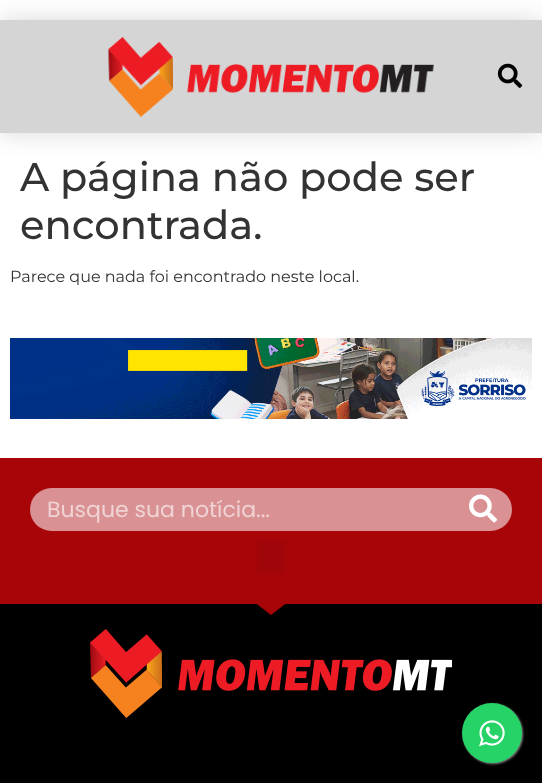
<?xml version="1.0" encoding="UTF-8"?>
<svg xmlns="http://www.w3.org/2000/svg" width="542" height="783">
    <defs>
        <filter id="blur1" x="-50%" y="-200%" width="200%" height="500%"><feGaussianBlur stdDeviation="12"/></filter>
        <filter id="blur2" x="-50%" y="-200%" width="200%" height="500%"><feGaussianBlur stdDeviation="1"/></filter>
    </defs>
    <rect width="100%" height="100%" fill="#FFFFFF"/>
    <rect x="0" y="20" width="542" height="113" fill="#000000" fill-opacity="0.15" filter="url(#blur1)"/>
    <rect x="0" y="20" width="542" height="113" fill="#D5D5D5"/>
    <image x="108" y="37" width="326" height="80" href="img_01.png"/>
    <image x="497" y="63" width="26" height="25" href="img_02.png"/>
    <text font-family="Montserrat" font-size="40" font-weight="500" fill="#333333">
        <tspan x="20" y="191">A página não pode ser</tspan>
        <tspan x="20" y="239">encontrada.</tspan>
    </text>
    <text x="10" y="282" font-family="Montserrat" font-size="16" fill="#333333">Parece que nada foi encontrado neste local.</text>
    <image x="10" y="338" width="522" height="81" href="img_03.png"/>
    <rect x="0" y="458" width="542" height="146" fill="#A80509"/>
    <rect x="30" y="488" width="482" height="43" rx="21.5" fill="#D99193"/>
    <text x="47" y="517" font-family="Poppins" font-size="22" fill="#F0D3D4">Busque sua notícia...</text>
    <image x="469" y="494" width="28" height="29" href="img_04.png"/>
    <rect x="257" y="541" width="28" height="33" rx="3" fill="#A00509"/>
    <rect x="0" y="604" width="542" height="179" fill="#000000"/>
    <path d="M 271 615 L 255.5 603 H 286.5 Z" fill="#A80509"/>
    <image x="90" y="629" width="362" height="89" href="img_05.png"/>
    <rect x="463" y="704" width="60" height="60" rx="30" fill="#888888" filter="url(#blur2)"/>
    <circle cx="492" cy="733" r="30" fill="#25D366"/>
    <image x="479" y="720" width="26" height="27" href="img_06.png"/>
</svg>
